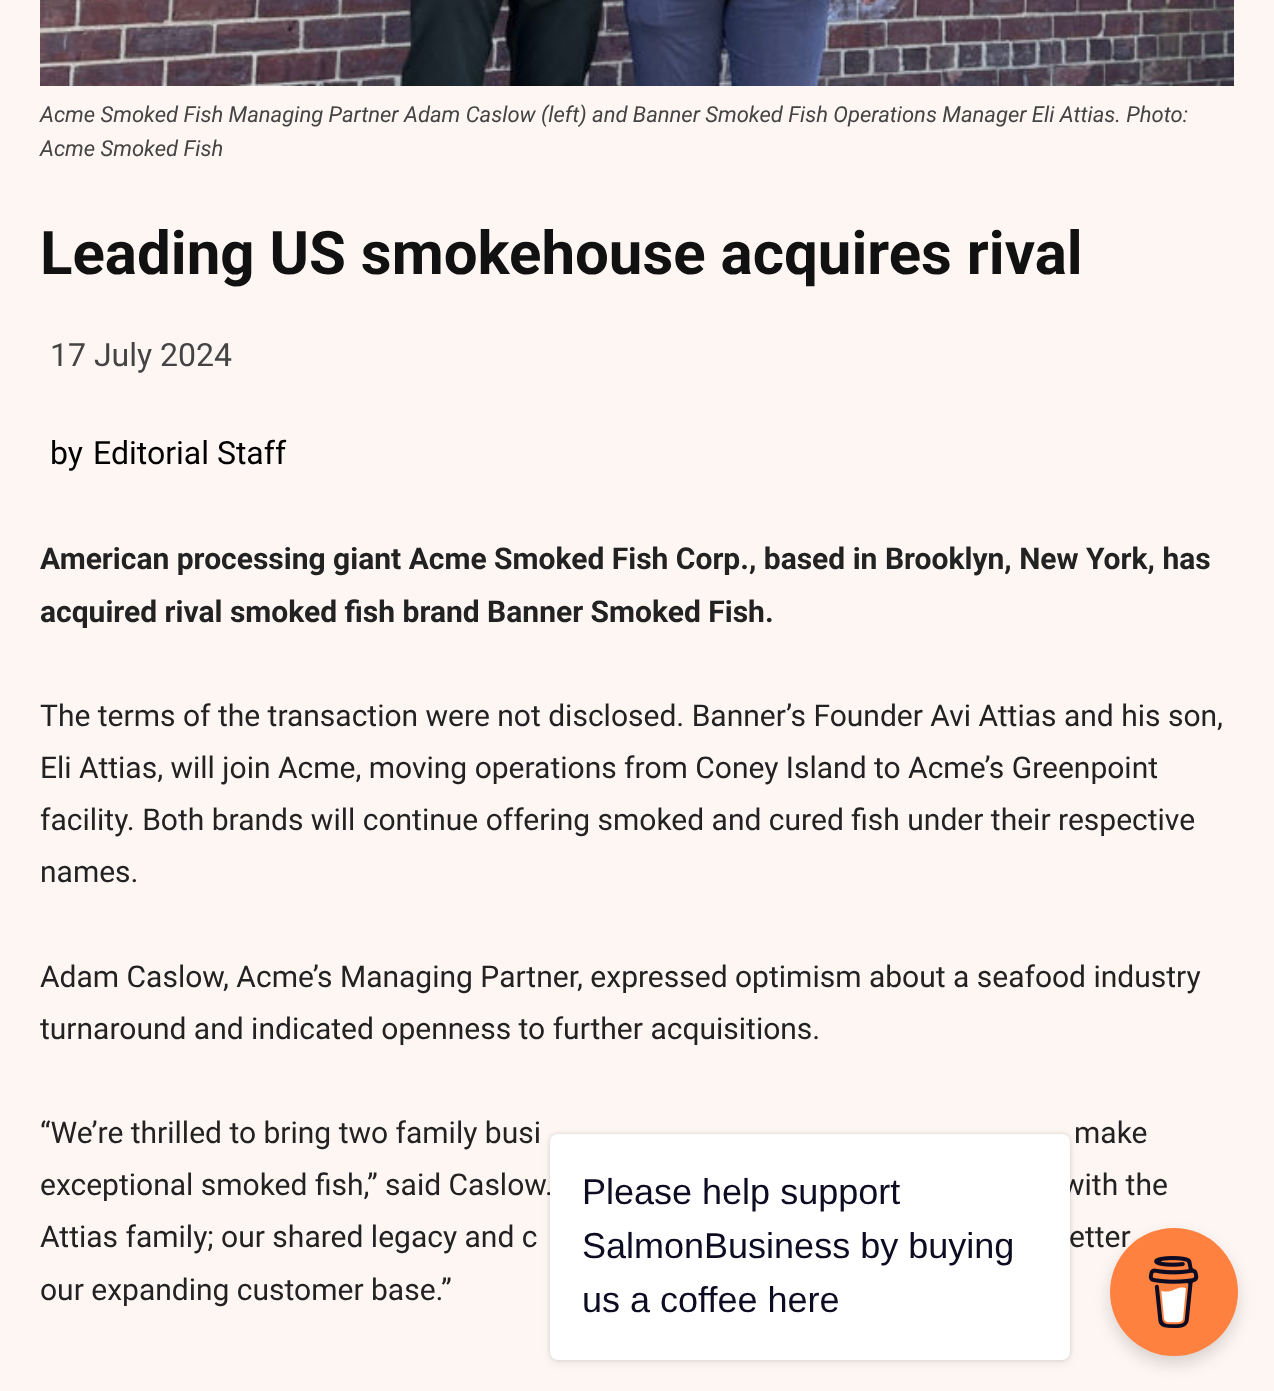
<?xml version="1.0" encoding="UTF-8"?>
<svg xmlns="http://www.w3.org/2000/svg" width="1274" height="1391">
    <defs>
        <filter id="blur1" x="-50%" y="-200%" width="200%" height="500%"><feGaussianBlur stdDeviation="2"/></filter>
        <filter id="blur2" x="-50%" y="-200%" width="200%" height="500%"><feGaussianBlur stdDeviation="5"/></filter>
        <filter id="blur3" x="-50%" y="-200%" width="200%" height="500%"><feGaussianBlur stdDeviation="8"/></filter>
    </defs>
    <rect width="100%" height="100%" fill="#FEF6F3"/>
    <image x="40" y="0" width="1194" height="86" href="img_01.png"/>
    <text font-family="Roboto" font-size="22" font-style="italic" fill="#444444">
        <tspan x="40" y="122">Acme Smoked Fish Managing Partner Adam Caslow (left) and Banner Smoked Fish Operations Manager Eli Attias. Photo:</tspan>
        <tspan x="40" y="156">Acme Smoked Fish</tspan>
    </text>
    <text x="40" y="274" font-family="Roboto" font-size="60" font-weight="700" fill="#111111">Leading US smokehouse acquires rival</text>
    <text x="50" y="366" font-family="Roboto" font-size="32" fill="#444444">17 July 2024</text>
    <text x="50" y="464" font-family="Roboto" font-size="32" fill="#000000">by</text>
    <text x="93" y="464" font-family="Roboto" font-size="32" fill="#000000">Editorial Staff</text>
    <text font-family="Roboto" font-size="30" font-weight="700" fill="#222222">
        <tspan x="40" y="569">American processing giant Acme Smoked Fish Corp., based in Brooklyn, New York, has</tspan>
        <tspan x="40" y="622">acquired rival smoked fish brand Banner Smoked Fish.</tspan>
    </text>
    <text font-family="Roboto" font-size="30" fill="#222222">
        <tspan x="40" y="726">The terms of the transaction were not disclosed. Banner’s Founder Avi Attias and his son,</tspan>
        <tspan x="40" y="778">Eli Attias, will join Acme, moving operations from Coney Island to Acme’s Greenpoint</tspan>
        <tspan x="40" y="830">facility. Both brands will continue offering smoked and cured fish under their respective</tspan>
        <tspan x="40" y="882">names.</tspan>
    </text>
    <text font-family="Roboto" font-size="30" fill="#222222">
        <tspan x="40" y="987">Adam Caslow, Acme’s Managing Partner, expressed optimism about a seafood industry</tspan>
        <tspan x="40" y="1039">turnaround and indicated openness to further acquisitions.</tspan>
    </text>
    <text x="40" y="1143" font-family="Roboto" font-size="30" fill="#222222">“We’re thrilled to bring two family busi</text>
    <text x="1074" y="1143" font-family="Roboto" font-size="30" fill="#222222">make</text>
    <text x="40" y="1195" font-family="Roboto" font-size="30" fill="#222222">exceptional smoked fish,” said Caslow.</text>
    <text x="1062" y="1195" font-family="Roboto" font-size="30" fill="#222222">with the</text>
    <text x="40" y="1247" font-family="Roboto" font-size="30" fill="#222222">Attias family; our shared legacy and c</text>
    <text x="1069" y="1247" font-family="Roboto" font-size="30" fill="#222222">etter</text>
    <text x="40" y="1300" font-family="Roboto" font-size="30" fill="#222222">our expanding customer base.”</text>
    <rect x="550" y="1134" width="520" height="226" rx="8" fill="#000000" fill-opacity="0.15" filter="url(#blur1)"/>
    <rect x="550" y="1138" width="520" height="226" rx="8" fill="#000000" fill-opacity="0.05" filter="url(#blur2)"/>
    <rect x="550" y="1134" width="520" height="226" rx="8" fill="#FFFFFF"/>
    <text font-family="Liberation Sans" font-size="36" fill="#0D0C22">
        <tspan x="582" y="1204">Please help support</tspan>
        <tspan x="582" y="1258">SalmonBusiness by buying</tspan>
        <tspan x="582" y="1312">us a coffee here</tspan>
    </text>
    <rect x="1110" y="1236" width="128" height="128" rx="64" fill="#000000" fill-opacity="0.15" filter="url(#blur3)"/>
    <circle cx="1174" cy="1292" r="64" fill="#FF813F"/>
    <image x="1148" y="1256" width="51" height="72" href="img_02.png"/>
</svg>
